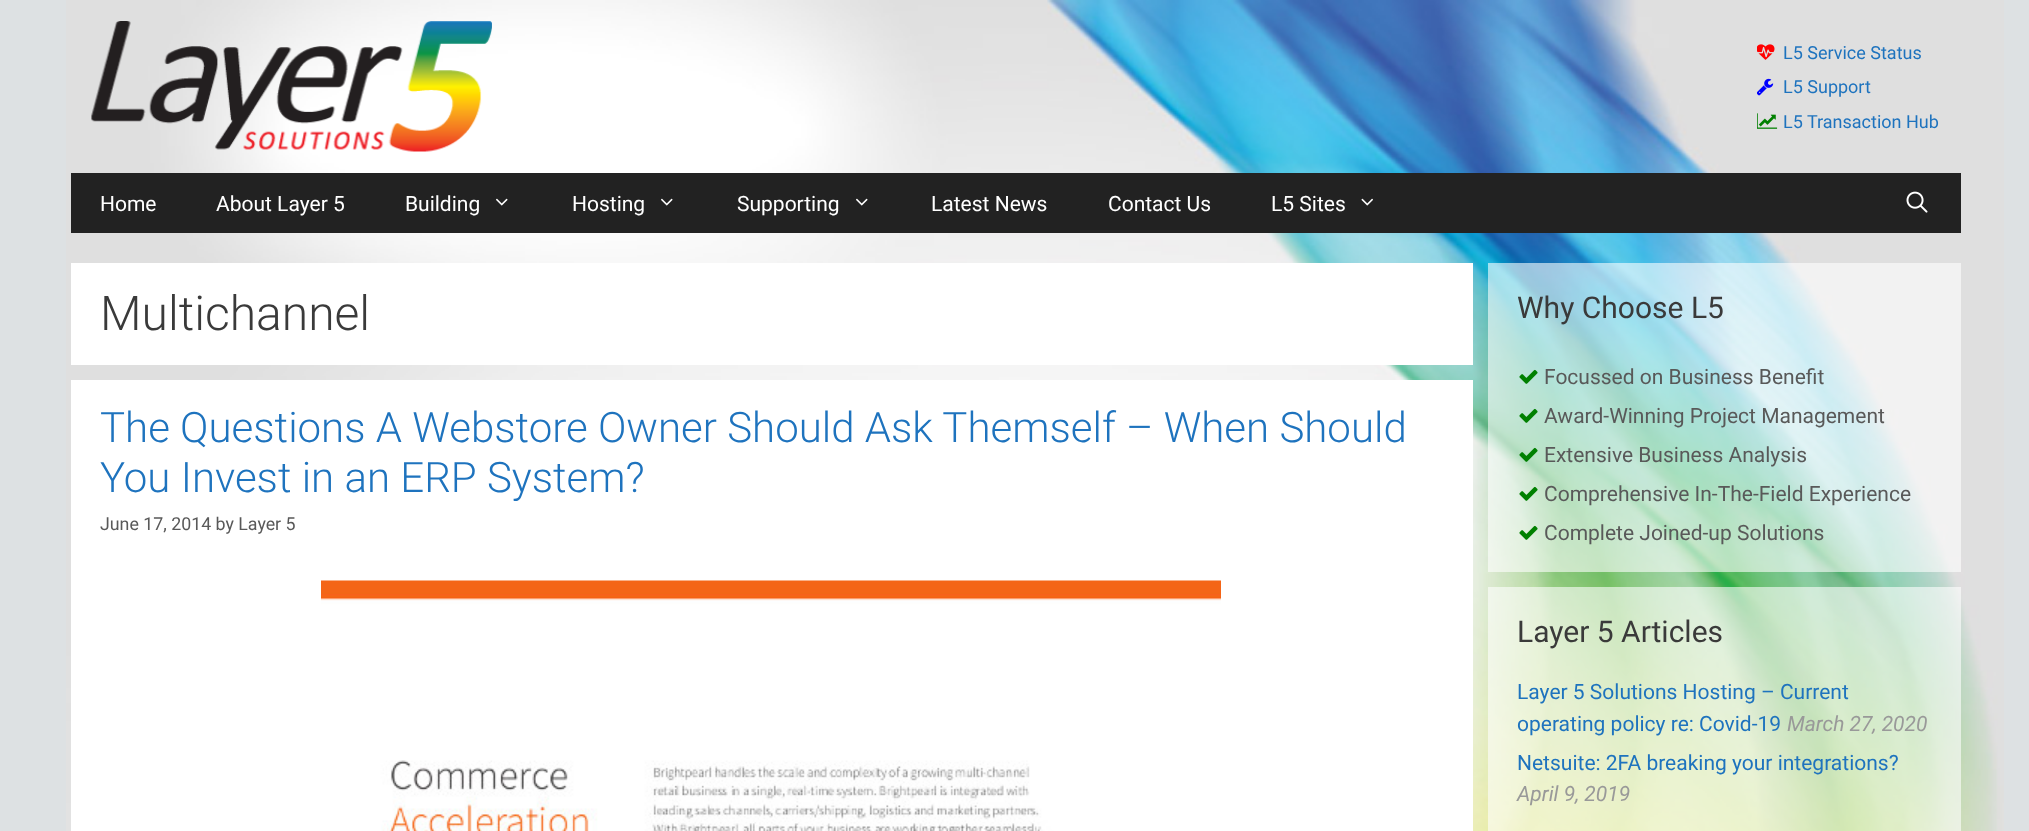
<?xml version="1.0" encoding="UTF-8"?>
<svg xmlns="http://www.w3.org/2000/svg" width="2029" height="831">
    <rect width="100%" height="100%" fill="#DDE1E3"/>
    <image x="66" y="0" width="1938" height="831" href="img_01.png"/>
    <image x="71" y="0" width="1890" height="173" href="img_02.png"/>
    <image x="91" y="21" width="401" height="131" href="img_03.png"/>
    <image x="1757" y="44" width="18" height="16" href="img_04.png"/>
    <text x="1783" y="59" font-family="Roboto" font-size="18" fill="#1E73BE">L5 Service Status</text>
    <image x="1757" y="78" width="17" height="18" href="img_05.png"/>
    <text x="1783" y="93" font-family="Roboto" font-size="18" fill="#1E73BE">L5 Support</text>
    <image x="1757" y="113" width="21" height="16" href="img_06.png"/>
    <text x="1783" y="128" font-family="Roboto" font-size="18" fill="#1E73BE">L5 Transaction Hub</text>
    <rect x="71" y="173" width="1890" height="60" fill="#222222"/>
    <text x="100" y="211" font-family="Roboto" font-size="21" fill="#FFFFFF">Home</text>
    <text x="216" y="211" font-family="Roboto" font-size="21" fill="#FFFFFF">About Layer 5</text>
    <text x="405" y="211" font-family="Roboto" font-size="21" fill="#FFFFFF">Building</text>
    <image x="496" y="198" width="12" height="8" href="img_07.png"/>
    <text x="572" y="211" font-family="Roboto" font-size="21" fill="#FFFFFF">Hosting</text>
    <image x="661" y="198" width="12" height="8" href="img_07.png"/>
    <text x="737" y="211" font-family="Roboto" font-size="21" fill="#FFFFFF">Supporting</text>
    <image x="856" y="198" width="12" height="8" href="img_07.png"/>
    <text x="931" y="211" font-family="Roboto" font-size="21" fill="#FFFFFF">Latest News</text>
    <text x="1108" y="211" font-family="Roboto" font-size="21" fill="#FFFFFF">Contact Us</text>
    <text x="1271" y="211" font-family="Roboto" font-size="21" fill="#FFFFFF">L5 Sites</text>
    <image x="1361" y="198" width="12" height="8" href="img_08.png"/>
    <image x="1906" y="191" width="22" height="22" href="img_09.png"/>
    <rect x="71" y="263" width="1402" height="102" fill="#FFFFFF"/>
    <text x="100" y="330" font-family="Roboto" font-size="48" font-weight="300" fill="#3A3A3A">Multichannel</text>
    <rect x="71" y="380" width="1402" height="451" fill="#FFFFFF"/>
    <text font-family="Roboto" font-size="42" font-weight="300" fill="#1E73BE">
        <tspan x="100" y="442">The Questions A Webstore Owner Should Ask Themself – When Should</tspan>
        <tspan x="100" y="492">You Invest in an ERP System?</tspan>
    </text>
    <text x="100" y="530" font-family="Roboto" font-size="17.8" fill="#595959">June 17, 2014 by Layer 5</text>
    <image x="321" y="580" width="900" height="251" href="img_10.png"/>
    <rect x="1488" y="263" width="473" height="309" fill="#FFFFFF" fill-opacity="0.6"/>
    <text x="1517" y="318" font-family="Roboto" font-size="30" fill="#3A3A3A">Why Choose L5</text>
    <image x="1519" y="369" width="19" height="15" href="img_11.png"/>
    <text x="1544" y="384" font-family="Roboto" font-size="21" fill="#595959">Focussed on Business Benefit</text>
    <image x="1519" y="408" width="19" height="15" href="img_12.png"/>
    <text x="1544" y="423" font-family="Roboto" font-size="21" fill="#595959">Award-Winning Project Management</text>
    <image x="1519" y="447" width="19" height="15" href="img_13.png"/>
    <text x="1544" y="462" font-family="Roboto" font-size="21" fill="#595959">Extensive Business Analysis</text>
    <image x="1519" y="486" width="19" height="15" href="img_14.png"/>
    <text x="1544" y="501" font-family="Roboto" font-size="21" fill="#595959">Comprehensive In-The-Field Experience</text>
    <image x="1519" y="525" width="19" height="15" href="img_15.png"/>
    <text x="1544" y="540" font-family="Roboto" font-size="21" fill="#595959">Complete Joined-up Solutions</text>
    <rect x="1488" y="587" width="473" height="244" fill="#FFFFFF" fill-opacity="0.6"/>
    <text x="1517" y="642" font-family="Roboto" font-size="30" fill="#3A3A3A">Layer 5 Articles</text>
    <text font-family="Roboto" font-size="21" fill="#1E73BE">
        <tspan x="1517" y="699">Layer 5 Solutions Hosting – Current</tspan>
        <tspan x="1517" y="731">operating policy re: Covid-19</tspan>
    </text>
    <text x="1787" y="731" font-family="Roboto" font-size="21" font-style="italic" fill="#999999">March 27, 2020</text>
    <text x="1517" y="770" font-family="Roboto" font-size="21" fill="#1E73BE">Netsuite: 2FA breaking your integrations?</text>
    <text x="1517" y="801" font-family="Roboto" font-size="21" font-style="italic" fill="#999999">April 9, 2019</text>
</svg>
